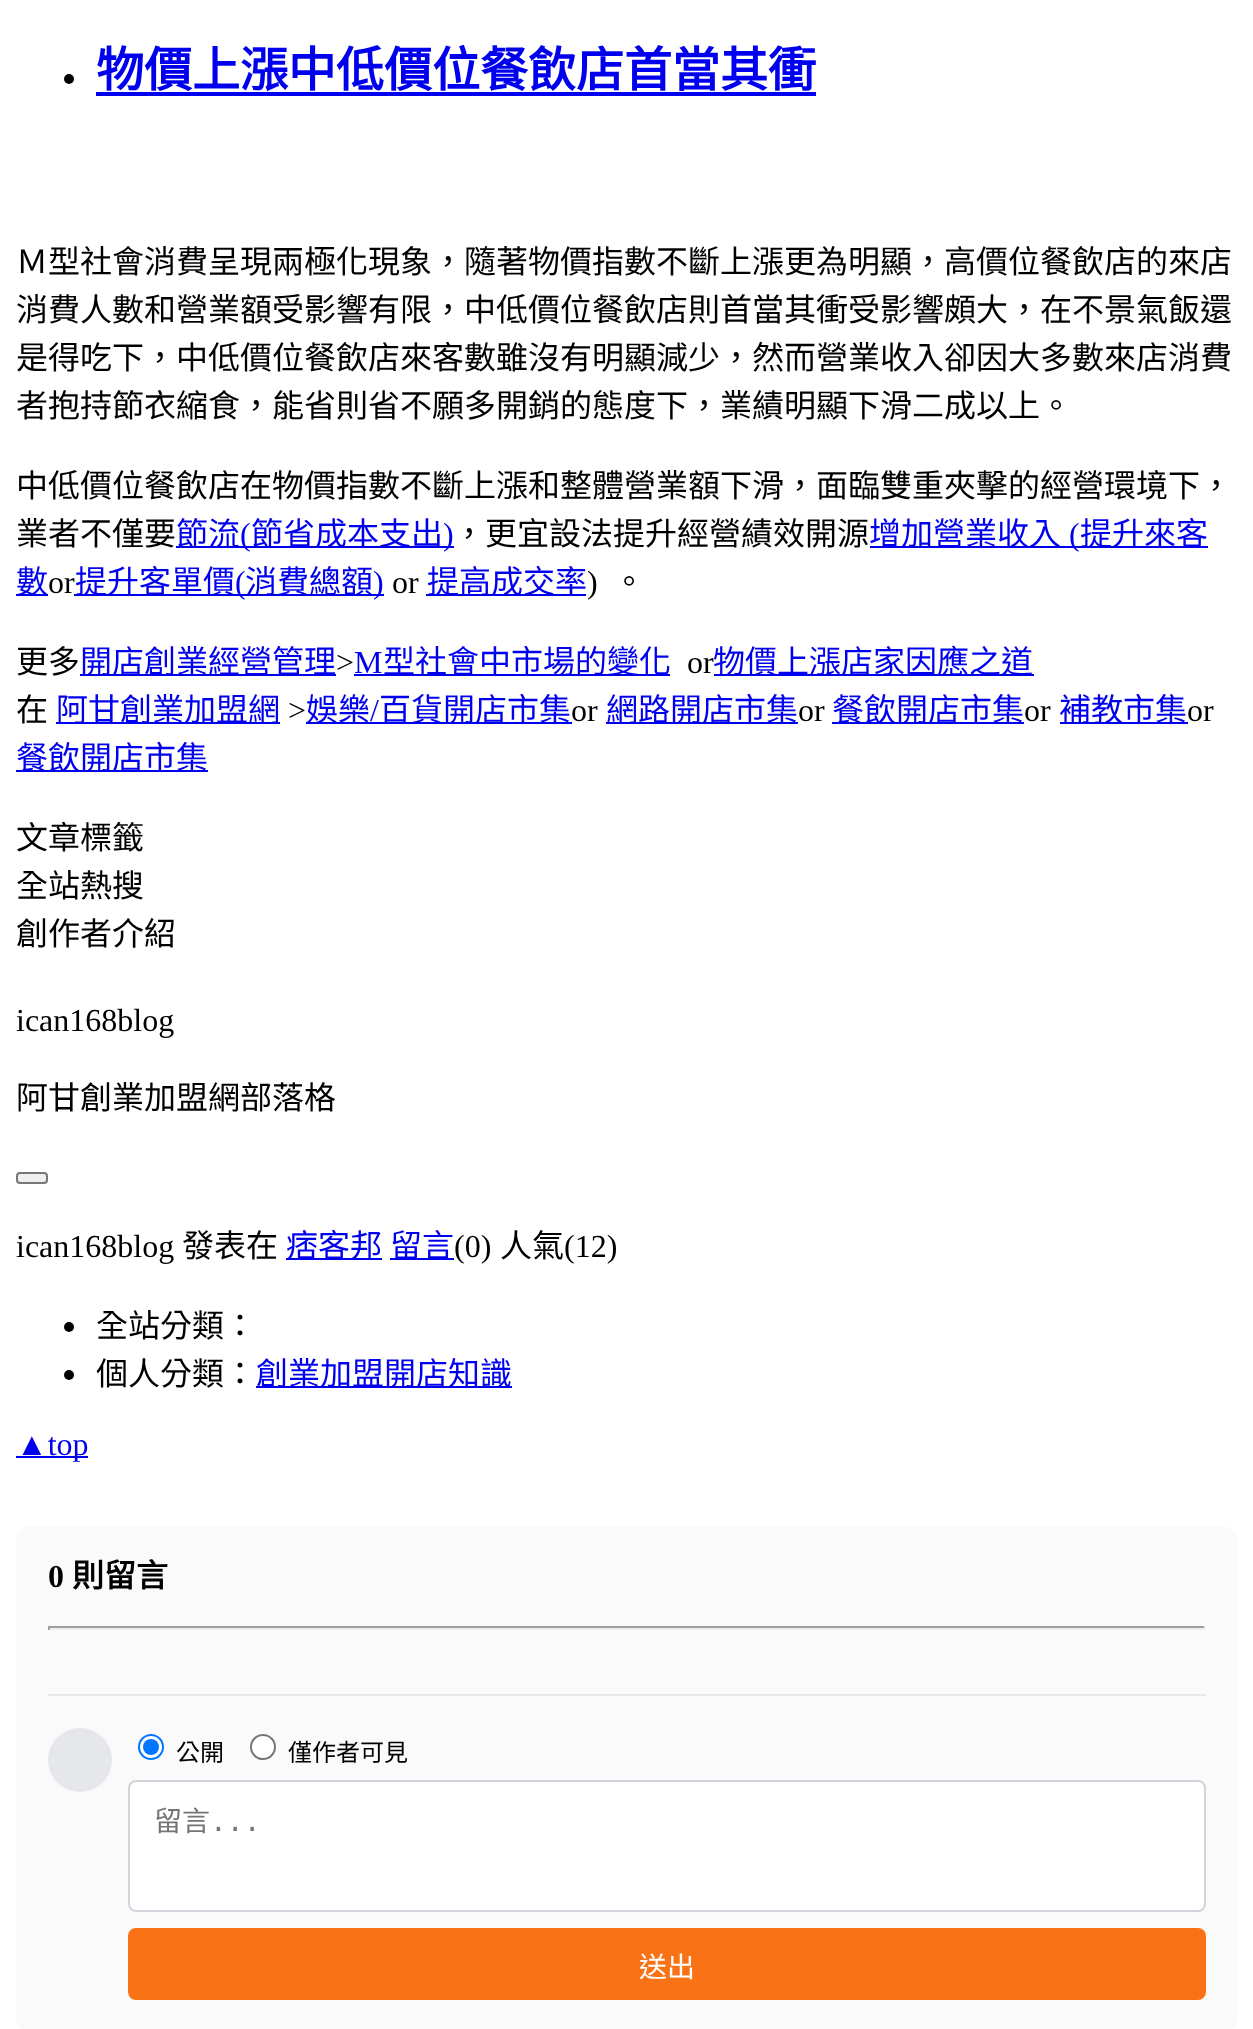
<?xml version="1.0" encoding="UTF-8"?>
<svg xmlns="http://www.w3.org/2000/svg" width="1253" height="2029">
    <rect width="100%" height="100%" fill="#FFFFFF"/>
    <circle cx="69" cy="79" r="5" fill="#000000"/>
    <text x="96" y="87" font-family="Noto Sans CJK TC" font-size="48" font-weight="700" fill="#0000EE">物價上漲中低價位餐飲店首當其衝</text>
    <rect x="96" y="92" width="720" height="4" fill="#0000EE"/>
    <text font-family="Noto Sans CJK TC" font-size="32" fill="#000000">
        <tspan x="16" y="273">Ｍ型社會消費呈現兩極化現象，隨著物價指數不斷上漲更為明顯，高價位餐飲店的來店</tspan>
        <tspan x="16" y="321">消費人數和營業額受影響有限，中低價位餐飲店則首當其衝受影響頗大，在不景氣飯還</tspan>
        <tspan x="16" y="369">是得吃下，中低價位餐飲店來客數雖沒有明顯減少，然而營業收入卻因大多數來店消費</tspan>
        <tspan x="16" y="417">者抱持節衣縮食，能省則省不願多開銷的態度下，業績明顯下滑二成以上。</tspan>
    </text>
    <text font-family="Noto Sans CJK TC" font-size="32" fill="#000000">
        <tspan x="16" y="497">中低價位餐飲店在物價指數不斷上漲和整體營業額下滑，面臨雙重夾擊的經營環境下，</tspan>
        <tspan x="16" y="545">業者不僅要</tspan>
    </text>
    <rect x="176" y="546" width="278" height="2" fill="#0000EE"/>
    <text x="176" y="545" font-family="Noto Sans CJK TC" font-size="32" fill="#0000EE">節流</text>
    <text x="240" y="545" font-family="Liberation Serif" font-size="32" fill="#0000EE">(</text>
    <text x="251" y="545" font-family="Noto Sans CJK TC" font-size="32" fill="#0000EE">節省成本支出</text>
    <text x="443" y="545" font-family="Liberation Serif" font-size="32" fill="#0000EE">)</text>
    <text x="453" y="545" font-family="Noto Sans CJK TC" font-size="32" fill="#000000">，更宜設法提升經營績效開源</text>
    <rect x="870" y="546" width="338" height="2" fill="#0000EE"/>
    <text x="869" y="545" font-family="Noto Sans CJK TC" font-size="32" fill="#0000EE">增加營業收入</text>
    <text x="1069" y="545" font-family="Liberation Serif" font-size="32" fill="#0000EE">(</text>
    <text x="1080" y="545" font-family="Noto Sans CJK TC" font-size="32" fill="#0000EE">提升來客</text>
    <rect x="16" y="594" width="32" height="2" fill="#0000EE"/>
    <text x="16" y="593" font-family="Noto Sans CJK TC" font-size="32" fill="#0000EE">數</text>
    <text x="48" y="593" font-family="Liberation Serif" font-size="32" fill="#000000">or</text>
    <rect x="74" y="594" width="310" height="2" fill="#0000EE"/>
    <text x="75" y="593" font-family="Noto Sans CJK TC" font-size="32" fill="#0000EE">提升客單價</text>
    <text x="235" y="593" font-family="Liberation Serif" font-size="32" fill="#0000EE">(</text>
    <text x="245" y="593" font-family="Noto Sans CJK TC" font-size="32" fill="#0000EE">消費總額</text>
    <text x="373" y="593" font-family="Liberation Serif" font-size="32" fill="#0000EE">)</text>
    <text x="392" y="593" font-family="Liberation Serif" font-size="32" fill="#000000">or</text>
    <rect x="426" y="594" width="160" height="2" fill="#0000EE"/>
    <text x="427" y="593" font-family="Noto Sans CJK TC" font-size="32" fill="#0000EE">提高成交率</text>
    <text x="587" y="593" font-family="Liberation Serif" font-size="32" fill="#000000">)</text>
    <text x="613" y="593" font-family="Noto Sans CJK TC" font-size="32" fill="#000000">。</text>
    <text x="16" y="673" font-family="Noto Sans CJK TC" font-size="32" fill="#000000">更多</text>
    <rect x="80" y="674" width="256" height="2" fill="#0000EE"/>
    <text x="80" y="673" font-family="Noto Sans CJK TC" font-size="32" fill="#0000EE">開店創業經營管理</text>
    <text x="336" y="673" font-family="Liberation Serif" font-size="32" fill="#000000">&gt;</text>
    <text x="354" y="673" font-family="Liberation Serif" font-size="32" fill="#0000EE">M</text>
    <rect x="354" y="674" width="316" height="2" fill="#0000EE"/>
    <text x="383" y="673" font-family="Noto Sans CJK TC" font-size="32" fill="#0000EE">型社會中市場的變化</text>
    <text x="687" y="673" font-family="Liberation Serif" font-size="32" fill="#000000">or</text>
    <rect x="714" y="674" width="320" height="2" fill="#0000EE"/>
    <text x="713" y="673" font-family="Noto Sans CJK TC" font-size="32" fill="#0000EE">物價上漲店家因應之道</text>
    <text x="16" y="721" font-family="Noto Sans CJK TC" font-size="32" fill="#000000">在</text>
    <rect x="56" y="722" width="224" height="2" fill="#0000EE"/>
    <text x="56" y="721" font-family="Noto Sans CJK TC" font-size="32" fill="#0000EE">阿甘創業加盟網</text>
    <text x="288" y="721" font-family="Liberation Serif" font-size="32" fill="#000000">&gt;</text>
    <rect x="306" y="722" width="266" height="2" fill="#0000EE"/>
    <text x="306" y="721" font-family="Noto Sans CJK TC" font-size="32" fill="#0000EE">娛樂</text>
    <text x="370" y="721" font-family="Liberation Serif" font-size="32" fill="#0000EE">/</text>
    <text x="379" y="721" font-family="Noto Sans CJK TC" font-size="32" fill="#0000EE">百貨開店市集</text>
    <text x="571" y="721" font-family="Liberation Serif" font-size="32" fill="#000000">or</text>
    <rect x="606" y="722" width="192" height="2" fill="#0000EE"/>
    <text x="606" y="721" font-family="Noto Sans CJK TC" font-size="32" fill="#0000EE">網路開店市集</text>
    <text x="798" y="721" font-family="Liberation Serif" font-size="32" fill="#000000">or</text>
    <rect x="832" y="722" width="192" height="2" fill="#0000EE"/>
    <text x="832" y="721" font-family="Noto Sans CJK TC" font-size="32" fill="#0000EE">餐飲開店市集</text>
    <text x="1024" y="721" font-family="Liberation Serif" font-size="32" fill="#000000">or</text>
    <rect x="1060" y="722" width="128" height="2" fill="#0000EE"/>
    <text x="1059" y="721" font-family="Noto Sans CJK TC" font-size="32" fill="#0000EE">補教市集</text>
    <text x="1187" y="721" font-family="Liberation Serif" font-size="32" fill="#000000">or</text>
    <rect x="16" y="770" width="192" height="2" fill="#0000EE"/>
    <text x="16" y="769" font-family="Noto Sans CJK TC" font-size="32" fill="#0000EE">餐飲開店市集</text>
    <text font-family="Noto Sans CJK TC" font-size="32" fill="#000000">
        <tspan x="16" y="849">文章標籤</tspan>
        <tspan x="16" y="897">全站熱搜</tspan>
        <tspan x="16" y="945">創作者介紹</tspan>
    </text>
    <text x="16" y="1031" font-family="Liberation Serif" font-size="32" fill="#000000">ican168blog</text>
    <text x="16" y="1109" font-family="Noto Sans CJK TC" font-size="32" fill="#000000">阿甘創業加盟網部落格</text>
    <rect x="17" y="1173" width="30" height="10" rx="3" fill="#EFEFEF" stroke="#767676" stroke-width="2"/>
    <text x="16" y="1257" font-family="Liberation Serif" font-size="32" fill="#000000">ican168blog</text>
    <text x="182" y="1257" font-family="Noto Sans CJK TC" font-size="32" fill="#000000">發表在</text>
    <rect x="286" y="1258" width="96" height="2" fill="#0000EE"/>
    <text x="286" y="1257" font-family="Noto Sans CJK TC" font-size="32" fill="#0000EE">痞客邦</text>
    <rect x="390" y="1258" width="64" height="2" fill="#0000EE"/>
    <text x="390" y="1257" font-family="Noto Sans CJK TC" font-size="32" fill="#0000EE">留言</text>
    <text x="454" y="1257" font-family="Liberation Serif" font-size="32" fill="#000000">(0)</text>
    <text x="500" y="1257" font-family="Noto Sans CJK TC" font-size="32" fill="#000000">人氣</text>
    <text x="564" y="1257" font-family="Liberation Serif" font-size="32" fill="#000000">(12)</text>
    <circle cx="69" cy="1327" r="5" fill="#000000"/>
    <text x="96" y="1337" font-family="Noto Sans CJK TC" font-size="32" fill="#000000">全站分類：</text>
    <circle cx="69" cy="1375" r="5" fill="#000000"/>
    <text x="96" y="1385" font-family="Noto Sans CJK TC" font-size="32" fill="#000000">個人分類：</text>
    <rect x="256" y="1386" width="256" height="2" fill="#0000EE"/>
    <text x="256" y="1385" font-family="Noto Sans CJK TC" font-size="32" fill="#0000EE">創業加盟開店知識</text>
    <rect x="16" y="1456" width="72" height="2" fill="#0000EE"/>
    <text x="16" y="1455" font-family="Liberation Serif" font-size="32" fill="#0000EE">▲top</text>
    <rect x="16" y="1526" width="1222" height="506" rx="16" fill="#FAFAFA"/>
    <text x="48" y="1587" font-family="Liberation Serif" font-size="32" font-weight="700" fill="#000000">0</text>
    <text x="72" y="1587" font-family="Noto Sans CJK TC" font-size="32" font-weight="700" fill="#000000">則留言</text>
    <rect x="48" y="1626" width="1158" height="2" fill="#9F9F9F"/>
    <rect x="1204" y="1626" width="2" height="4" fill="#EEEEEE"/>
    <rect x="48" y="1628" width="1158" height="2" fill="#EEEEEE"/>
    <rect x="48" y="1626" width="2" height="4" fill="#9F9F9F"/>
    <rect x="48" y="1694" width="1158" height="2" fill="#E5E7EB"/>
    <circle cx="80" cy="1760" r="32" fill="#E5E7EB"/>
    <circle cx="151" cy="1747" r="12" fill="#FFFFFF" stroke="#0075FF" stroke-width="2"/>
    <circle cx="151" cy="1747" r="8" fill="#0075FF"/>
    <text x="176" y="1761" font-family="Noto Sans CJK TC" font-size="24" fill="#000000">公開</text>
    <circle cx="263" cy="1747" r="12" fill="#FFFFFF" stroke="#767676" stroke-width="2"/>
    <text x="288" y="1761" font-family="Noto Sans CJK TC" font-size="24" fill="#000000">僅作者可見</text>
    <rect x="129" y="1781" width="1076" height="130" rx="7" fill="#FFFFFF" stroke="#D1D5DB" stroke-width="2"/>
    <text x="154" y="1831" font-family="Noto Sans CJK TC" font-size="28" fill="#757575">留言</text>
    <text x="210" y="1831" font-family="DejaVu Sans Mono" font-size="28" fill="#757575">...</text>
    <rect x="128" y="1928" width="1078" height="72" rx="8" fill="#F97316"/>
    <text x="639" y="1977" font-family="Noto Sans CJK TC" font-size="28" fill="#FFFFFF">送出</text>
</svg>
